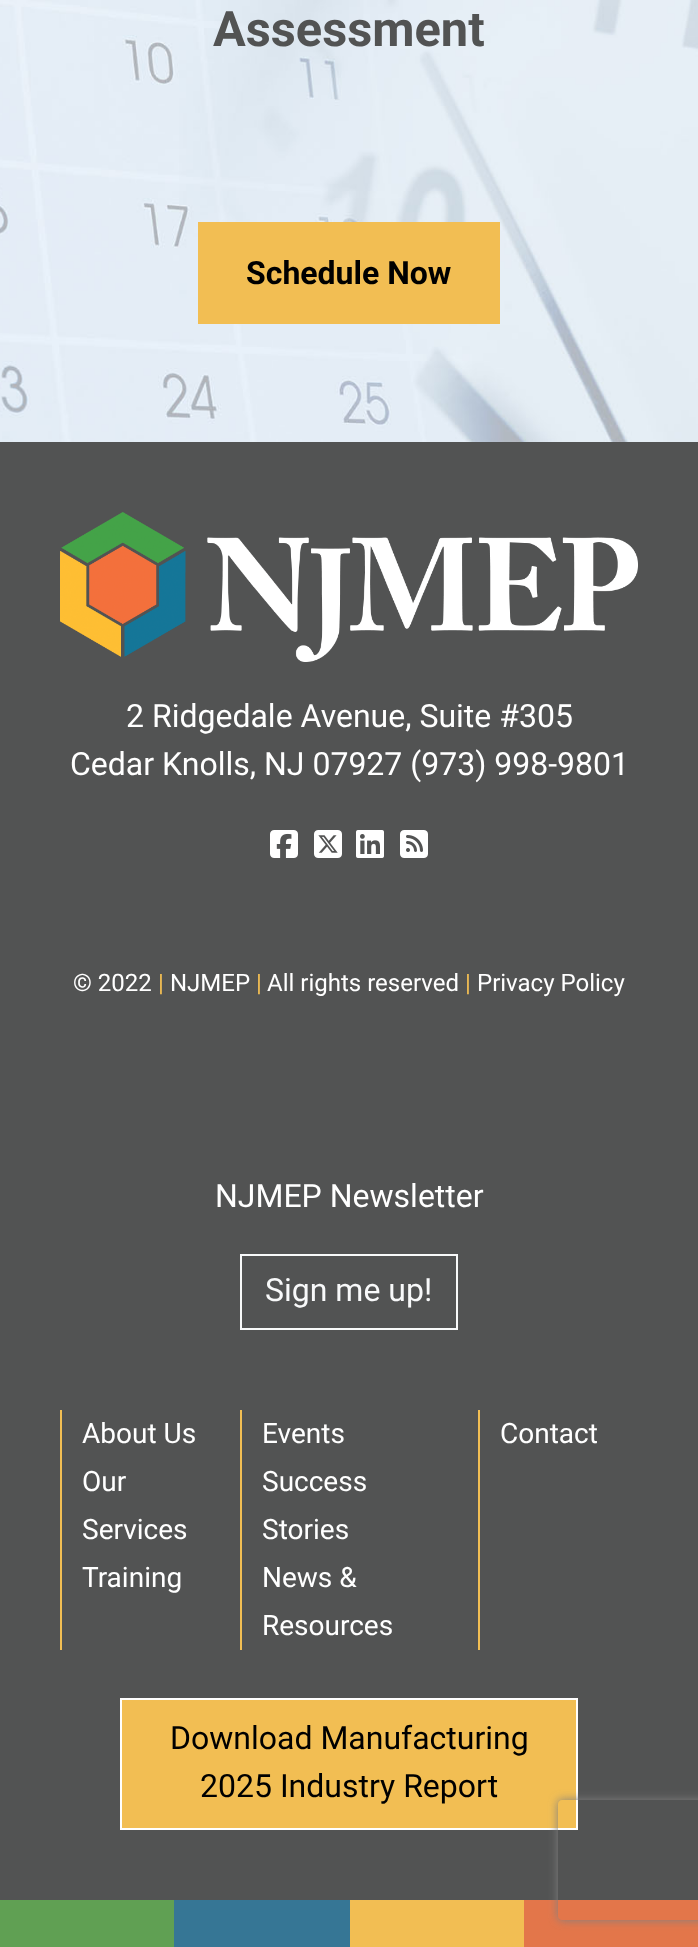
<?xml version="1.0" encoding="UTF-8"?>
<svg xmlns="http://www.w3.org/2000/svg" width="698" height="1947">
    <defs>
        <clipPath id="clip1"><path d="M 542 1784 H 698 V 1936 H 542 Z M 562 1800 H 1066 C 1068 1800 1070 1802 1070 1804 V 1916 C 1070 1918 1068 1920 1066 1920 H 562 C 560 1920 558 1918 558 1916 V 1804 C 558 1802 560 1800 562 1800 Z" clip-rule="evenodd"/></clipPath>
        <filter id="blur1" x="-50%" y="-200%" width="200%" height="500%"><feGaussianBlur stdDeviation="5"/></filter>
    </defs>
    <rect width="100%" height="100%" fill="#FFFFFF"/>
    <image x="0" y="0" width="698" height="442" href="img_01.png"/>
    <text x="213" y="46" font-family="Roboto" font-size="48.75" font-weight="700" fill="#525353">Assessment</text>
    <rect x="198" y="222" width="302" height="102" fill="#F2BE53"/>
    <text x="246" y="284" font-family="Roboto" font-size="32" font-weight="700" fill="#000000">Schedule Now</text>
    <rect x="0" y="442" width="698" height="1458" fill="#525353"/>
    <image x="60" y="512" width="578" height="150" href="img_02.png"/>
    <text x="126" y="727" font-family="Roboto" font-size="32" fill="#FFFFFF">2 Ridgedale Avenue, Suite #305</text>
    <text x="70" y="775" font-family="Roboto" font-size="32" fill="#FFFFFF">Cedar Knolls, NJ 07927 (973) 998-9801</text>
    <image x="270" y="830" width="28" height="28" href="img_03.png"/>
    <image x="314" y="830" width="28" height="28" href="img_04.png"/>
    <image x="356" y="830" width="28" height="28" href="img_05.png"/>
    <image x="400" y="830" width="28" height="28" href="img_06.png"/>
    <text x="73" y="991" font-family="Roboto" font-size="24" fill="#FFFFFF">© 2022</text>
    <text x="158" y="991" font-family="Roboto" font-size="24" fill="#F2BE53">|</text>
    <text x="170" y="991" font-family="Roboto" font-size="24" fill="#FFFFFF">NJMEP</text>
    <text x="256" y="991" font-family="Roboto" font-size="24" fill="#F2BE53">|</text>
    <text x="267" y="991" font-family="Roboto" font-size="24" fill="#FFFFFF">All rights reserved</text>
    <text x="465" y="991" font-family="Roboto" font-size="24" fill="#F2BE53">|</text>
    <text x="477" y="991" font-family="Roboto" font-size="24" fill="#FFFFFF">Privacy Policy</text>
    <text x="215" y="1207" font-family="Roboto" font-size="32" fill="#FFFFFF">NJMEP Newsletter</text>
    <rect x="241" y="1255" width="216" height="74" fill="none" stroke="#F8F9FA" stroke-width="2"/>
    <text x="265" y="1301" font-family="Roboto" font-size="32" fill="#F8F9FA">Sign me up!</text>
    <rect x="60" y="1410" width="2" height="240" fill="#F2BE53"/>
    <text font-family="Roboto" font-size="28" fill="#FFFFFF">
        <tspan x="82" y="1443">About Us</tspan>
        <tspan x="82" y="1491">Our</tspan>
        <tspan x="82" y="1539">Services</tspan>
        <tspan x="82" y="1587">Training</tspan>
    </text>
    <rect x="240" y="1410" width="2" height="240" fill="#F2BE53"/>
    <text font-family="Roboto" font-size="28" fill="#FFFFFF">
        <tspan x="262" y="1443">Events</tspan>
        <tspan x="262" y="1491">Success</tspan>
        <tspan x="262" y="1539">Stories</tspan>
        <tspan x="262" y="1587">News &amp;</tspan>
        <tspan x="262" y="1635">Resources</tspan>
    </text>
    <rect x="478" y="1410" width="2" height="240" fill="#F2BE53"/>
    <text x="500" y="1443" font-family="Roboto" font-size="28" fill="#FFFFFF">Contact</text>
    <rect x="121" y="1699" width="456" height="130" fill="#F2BE53" stroke="#FFFFFF" stroke-width="2"/>
    <text x="170" y="1749" font-family="Roboto" font-size="32" fill="#000000">Download Manufacturing</text>
    <text x="200" y="1797" font-family="Roboto" font-size="32" fill="#000000">2025 Industry Report</text>
    <rect x="0" y="1900" width="174" height="47" fill="#60A053"/>
    <rect x="174" y="1900" width="176" height="47" fill="#367695"/>
    <rect x="350" y="1900" width="174" height="47" fill="#F2BE53"/>
    <rect x="524" y="1900" width="174" height="47" fill="#E3764A"/>
    <g clip-path="url(#clip1)">
        <rect x="558" y="1800" width="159" height="120" rx="4" fill="#808080" filter="url(#blur1)"/>
    </g>
</svg>
